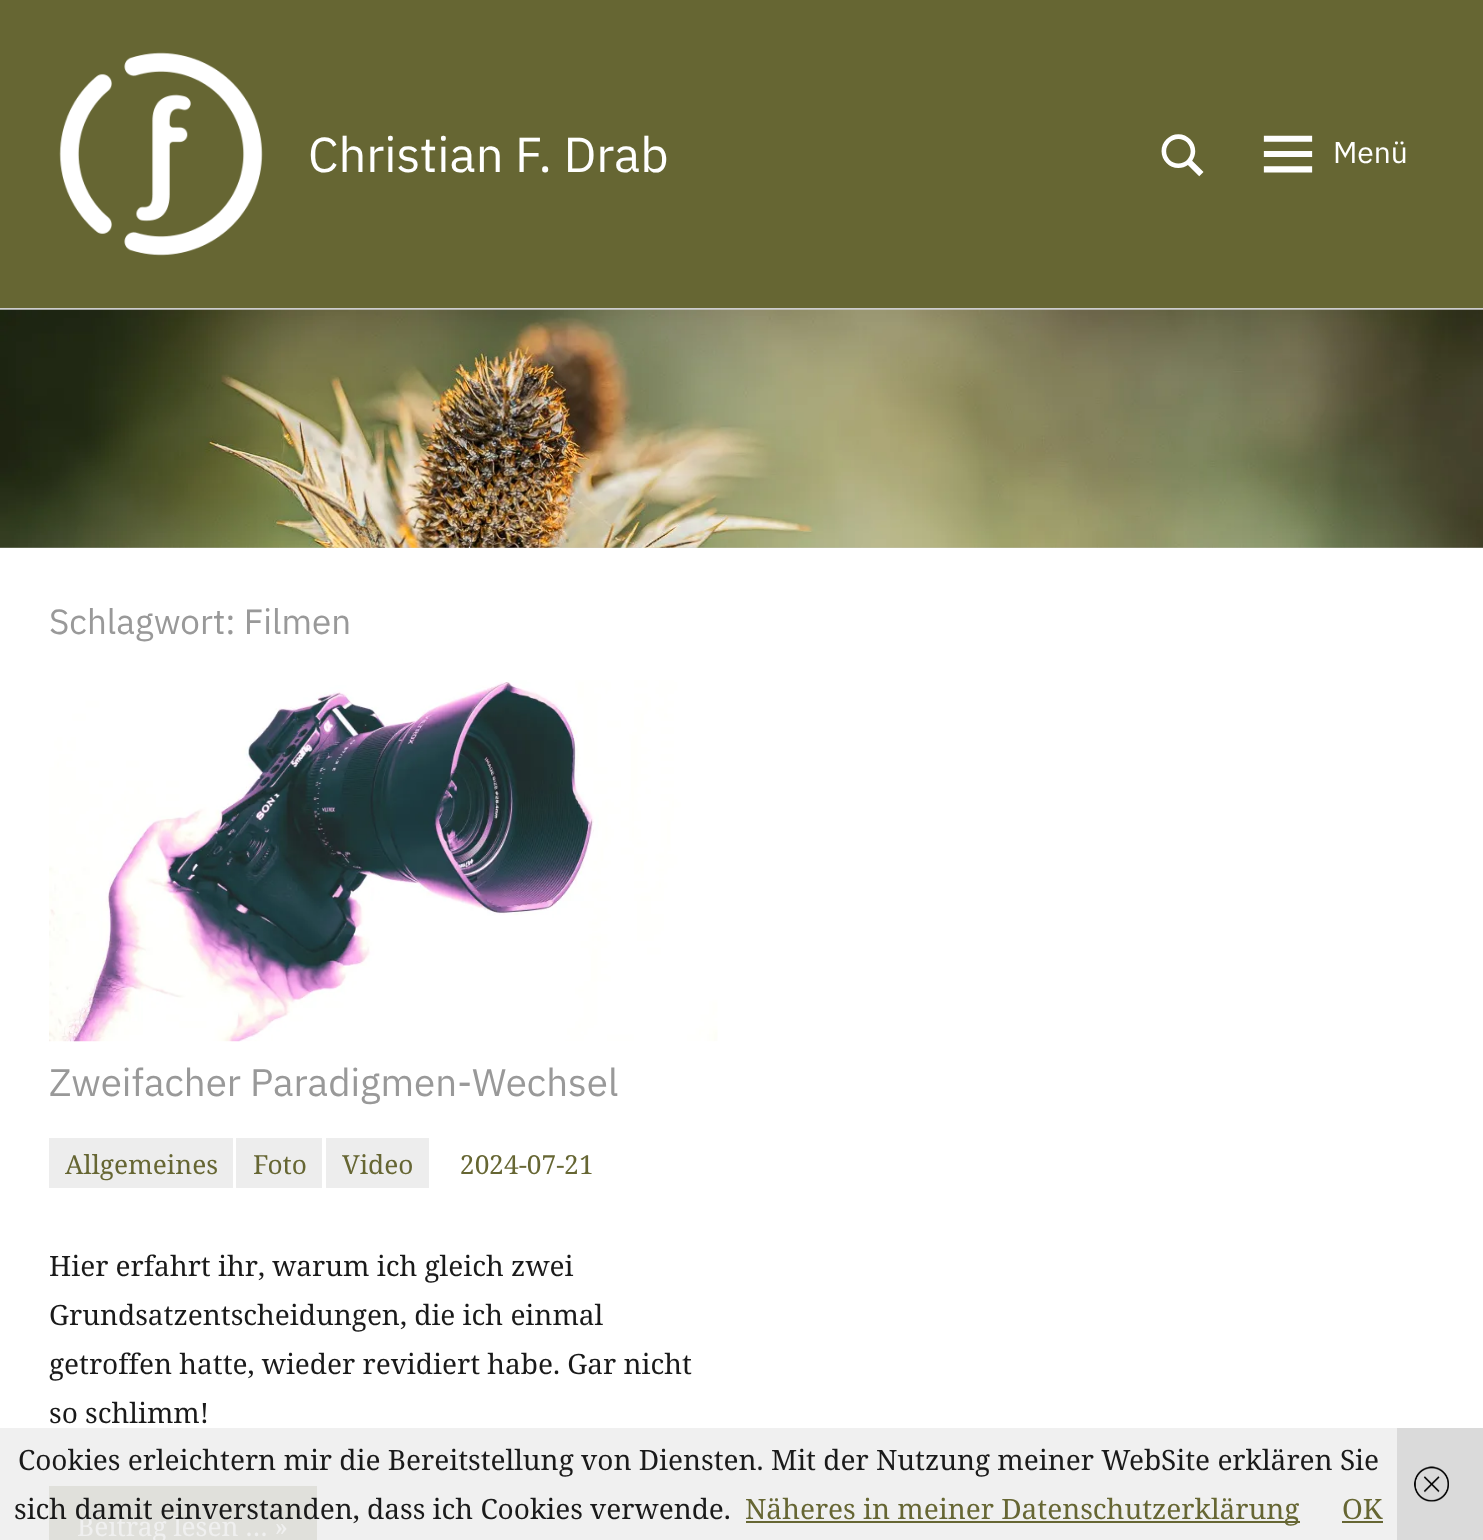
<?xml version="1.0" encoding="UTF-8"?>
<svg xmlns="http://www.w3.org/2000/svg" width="1483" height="1540">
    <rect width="100%" height="100%" fill="#CDCDCD"/>
    <rect x="0" y="0" width="1483" height="308" fill="#666633"/>
    <image x="59" y="52" width="204" height="204" href="img_01.png"/>
    <text x="308" y="172" font-family="IBM Plex Sans" font-size="49" fill="#FFFFFF">Christian F. Drab</text>
    <image x="1161" y="134" width="43" height="43" href="img_02.png"/>
    <image x="1263" y="135" width="50" height="38" href="img_03.png"/>
    <text x="1333" y="163" font-family="IBM Plex Sans" font-size="30" fill="#FFFFFF">Menü</text>
    <image x="0" y="309" width="1483" height="239" href="img_04.png"/>
    <rect x="0" y="548" width="1483" height="880" fill="#FFFFFF"/>
    <rect x="0" y="1428" width="1397" height="112" fill="#F0F0F0"/>
    <text x="49" y="634" font-family="IBM Plex Sans" font-size="35" fill="#999999">Schlagwort: Filmen</text>
    <image x="49" y="680" width="669" height="362" href="img_05.png"/>
    <text x="49" y="1096" font-family="IBM Plex Sans" font-size="38.5" fill="#999999">Zweifacher Paradigmen-Wechsel</text>
    <rect x="49" y="1138" width="184" height="50" fill="#EDEDED"/>
    <text x="65" y="1174" font-family="Noto Serif" font-size="26.25" fill="#666633">Allgemeines</text>
    <rect x="236" y="1138" width="86" height="50" fill="#EDEDED"/>
    <text x="253" y="1174" font-family="Noto Serif" font-size="26.25" fill="#666633">Foto</text>
    <rect x="326" y="1138" width="103" height="50" fill="#EDEDED"/>
    <text x="342" y="1174" font-family="Noto Serif" font-size="26.25" fill="#666633">Video</text>
    <text x="460" y="1174" font-family="Noto Serif" font-size="26.25" fill="#666633">2024-07-21</text>
    <text font-family="Noto Serif" font-size="28" fill="#1A1A1A">
        <tspan x="49" y="1276">Hier erfahrt ihr, warum ich gleich zwei</tspan>
        <tspan x="49" y="1325">Grundsatzentscheidungen, die ich einmal</tspan>
        <tspan x="49" y="1374">getroffen hatte, wieder revidiert habe. Gar nicht</tspan>
        <tspan x="49" y="1423">so schlimm!</tspan>
    </text>
    <rect x="49" y="1486" width="268" height="54" fill="#E0E0DB"/>
    <text x="77" y="1536" font-family="Noto Serif" font-size="26.25" fill="#F0F0F0">Beitrag lesen … »</text>
    <text x="18" y="1470" font-family="Noto Serif" font-size="28" fill="#1A1A1A">Cookies erleichtern mir die Bereitstellung von Diensten. Mit der Nutzung meiner WebSite erklären Sie</text>
    <text x="14" y="1519" font-family="Noto Serif" font-size="28" fill="#1A1A1A">sich damit einverstanden, dass ich Cookies verwende.</text>
    <rect x="746" y="1521" width="554" height="2" fill="#666633"/>
    <text x="745" y="1519" font-family="Noto Serif" font-size="28" fill="#666633">Näheres in meiner Datenschutzerklärung</text>
    <text x="1342" y="1519" font-family="Noto Serif" font-size="28" fill="#666633">OK</text>
    <rect x="1342" y="1521" width="41" height="2" fill="#666633"/>
    <rect x="1397" y="1428" width="86" height="112" fill="#DADADA"/>
    <image x="1414" y="1466" width="35" height="36" href="img_06.png"/>
</svg>
